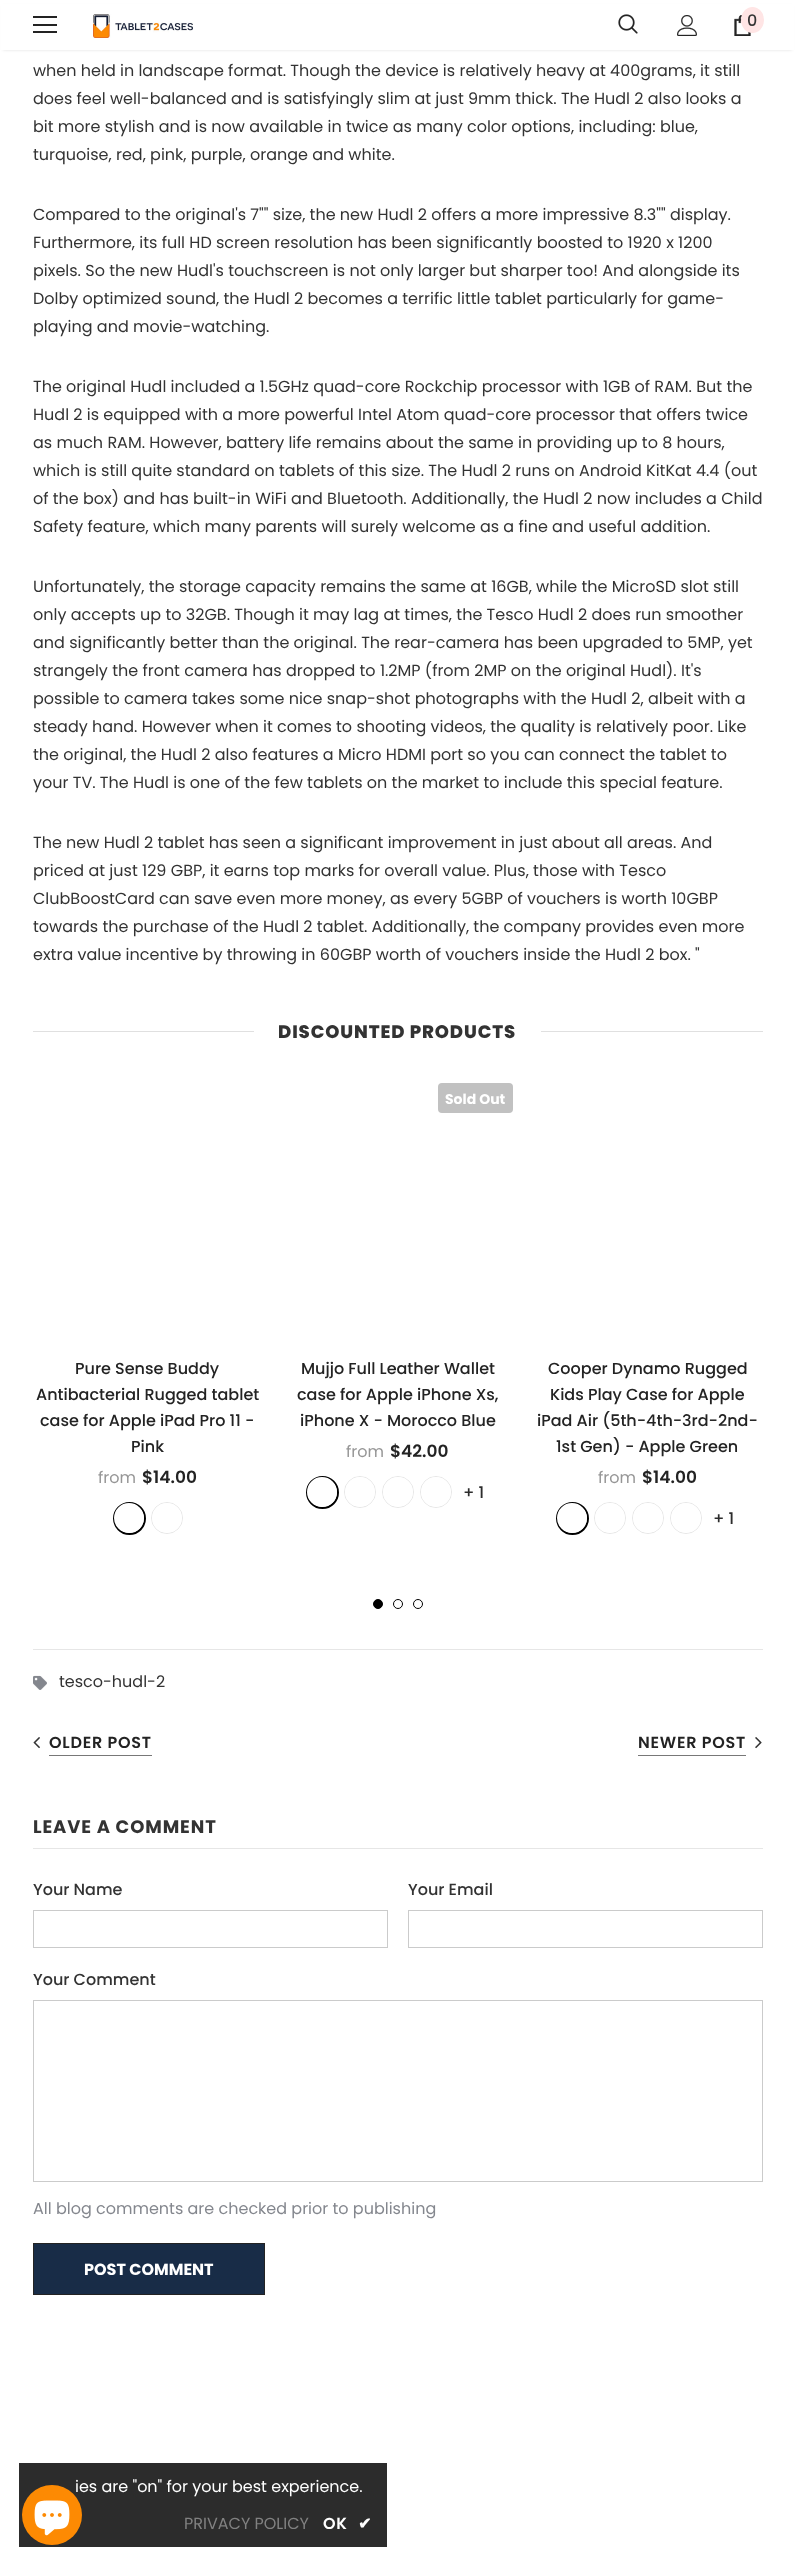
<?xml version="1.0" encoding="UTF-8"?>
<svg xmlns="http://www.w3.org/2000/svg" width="795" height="2566">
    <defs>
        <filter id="blur1" x="-50%" y="-200%" width="200%" height="500%"><feGaussianBlur stdDeviation="1.5"/></filter>
    </defs>
    <rect width="100%" height="100%" fill="#FFFFFF"/>
    <rect x="3" y="6" width="789" height="44" fill="#000000" fill-opacity="0.12" filter="url(#blur1)"/>
    <rect x="1" y="4" width="793" height="46" fill="#FFFFFF"/>
    <rect x="33" y="16" width="24" height="2" fill="#232323"/>
    <rect x="33" y="24" width="24" height="2" fill="#232323"/>
    <rect x="33" y="31" width="24" height="2" fill="#232323"/>
    <image x="93" y="14" width="100" height="24" href="img_01.png"/>
    <image x="618" y="14" width="20" height="20" href="img_02.png"/>
    <image x="677" y="15" width="20" height="21" href="img_03.png"/>
    <image x="734" y="15" width="17" height="21" href="img_04.png"/>
    <ellipse cx="752.5" cy="20" rx="11.5" ry="13" fill="#FFE5E5"/>
    <text x="747" y="26" font-family="Poppins" font-size="16" font-weight="500" fill="#333333">0</text>
    <text font-family="Poppins" font-size="16" fill="#333333">
        <tspan x="33" y="76">when held in landscape format. Though the device is relatively heavy at 400grams, it still</tspan>
        <tspan x="33" y="104">does feel well-balanced and is satisfyingly slim at just 9mm thick. The Hudl 2 also looks a</tspan>
        <tspan x="33" y="132">bit more stylish and is now available in twice as many color options, including: blue,</tspan>
        <tspan x="33" y="160">turquoise, red, pink, purple, orange and white.</tspan>
    </text>
    <text font-family="Poppins" font-size="16" fill="#333333">
        <tspan x="33" y="220">Compared to the original's 7"" size, the new Hudl 2 offers a more impressive 8.3"" display.</tspan>
        <tspan x="33" y="248">Furthermore, its full HD screen resolution has been significantly boosted to 1920 x 1200</tspan>
        <tspan x="33" y="276">pixels. So the new Hudl's touchscreen is not only larger but sharper too! And alongside its</tspan>
        <tspan x="33" y="304">Dolby optimized sound, the Hudl 2 becomes a terrific little tablet particularly for game-</tspan>
        <tspan x="33" y="332">playing and movie-watching.</tspan>
    </text>
    <text font-family="Poppins" font-size="16" fill="#333333">
        <tspan x="33" y="392">The original Hudl included a 1.5GHz quad-core Rockchip processor with 1GB of RAM. But the</tspan>
        <tspan x="33" y="420">Hudl 2 is equipped with a more powerful Intel Atom quad-core processor that offers twice</tspan>
        <tspan x="33" y="448">as much RAM. However, battery life remains about the same in providing up to 8 hours,</tspan>
        <tspan x="33" y="476">which is still quite standard on tablets of this size. The Hudl 2 runs on Android KitKat 4.4 (out</tspan>
        <tspan x="33" y="504">of the box) and has built-in WiFi and Bluetooth. Additionally, the Hudl 2 now includes a Child</tspan>
        <tspan x="33" y="532">Safety feature, which many parents will surely welcome as a fine and useful addition.</tspan>
    </text>
    <text font-family="Poppins" font-size="16" fill="#333333">
        <tspan x="33" y="592">Unfortunately, the storage capacity remains the same at 16GB, while the MicroSD slot still</tspan>
        <tspan x="33" y="620">only accepts up to 32GB. Though it may lag at times, the Tesco Hudl 2 does run smoother</tspan>
        <tspan x="33" y="648">and significantly better than the original. The rear-camera has been upgraded to 5MP, yet</tspan>
        <tspan x="33" y="676">strangely the front camera has dropped to 1.2MP (from 2MP on the original Hudl). It's</tspan>
        <tspan x="33" y="704">possible to camera takes some nice snap-shot photographs with the Hudl 2, albeit with a</tspan>
        <tspan x="33" y="732">steady hand. However when it comes to shooting videos, the quality is relatively poor. Like</tspan>
        <tspan x="33" y="760">the original, the Hudl 2 also features a Micro HDMI port so you can connect the tablet to</tspan>
        <tspan x="33" y="788">your TV. The Hudl is one of the few tablets on the market to include this special feature.</tspan>
    </text>
    <text font-family="Poppins" font-size="16" fill="#333333">
        <tspan x="33" y="848">The new Hudl 2 tablet has seen a significant improvement in just about all areas. And</tspan>
        <tspan x="33" y="876">priced at just 129 GBP, it earns top marks for overall value. Plus, those with Tesco</tspan>
        <tspan x="33" y="904">ClubBoostCard can save even more money, as every 5GBP of vouchers is worth 10GBP</tspan>
        <tspan x="33" y="932">towards the purchase of the Hudl 2 tablet. Additionally, the company provides even more</tspan>
        <tspan x="33" y="960">extra value incentive by throwing in 60GBP worth of vouchers inside the Hudl 2 box. "</tspan>
    </text>
    <rect x="33" y="1031" width="730" height="1" fill="#E0E0E0"/>
    <rect x="254" y="1031" width="287" height="1" fill="#FFFFFF"/>
    <text x="278" y="1038" font-family="Poppins" font-size="18" font-weight="800" letter-spacing="0.9" fill="#333333">DISCOUNTED PRODUCTS</text>
    <text x="75" y="1374" font-family="Poppins" font-size="16" font-weight="500" fill="#232323">Pure Sense Buddy</text>
    <text x="36" y="1400" font-family="Poppins" font-size="16" font-weight="500" fill="#232323">Antibacterial Rugged tablet</text>
    <text x="40" y="1426" font-family="Poppins" font-size="16" font-weight="500" fill="#232323">case for Apple iPad Pro 11 -</text>
    <text x="131" y="1452" font-family="Poppins" font-size="16" font-weight="500" fill="#232323">Pink</text>
    <text x="98" y="1483" font-family="Poppins" font-size="16" fill="#969696">from</text>
    <text x="142" y="1483" font-family="Poppins" font-size="17" font-weight="600" fill="#232323">$14.00</text>
    <circle cx="129.5" cy="1518.5" r="15.5" fill="none" stroke="#000000" stroke-width="2"/>
    <circle cx="129" cy="1518" r="13.5" fill="none" stroke="#FFFFFF" stroke-width="3"/>
    <circle cx="167" cy="1518" r="15.5" fill="none" stroke="#E6E6E6"/>
    <circle cx="167" cy="1518" r="13.5" fill="none" stroke="#FFFFFF" stroke-width="3"/>
    <rect x="438" y="1083" width="75" height="30" rx="4" fill="#C1C1C1"/>
    <text x="445" y="1104" font-family="Poppins" font-size="14" font-weight="700" fill="#FFFFFF">Sold Out</text>
    <text x="301" y="1374" font-family="Poppins" font-size="16" font-weight="500" fill="#232323">Mujjo Full Leather Wallet</text>
    <text x="297" y="1400" font-family="Poppins" font-size="16" font-weight="500" fill="#232323">case for Apple iPhone Xs,</text>
    <text x="300" y="1426" font-family="Poppins" font-size="16" font-weight="500" fill="#232323">iPhone X - Morocco Blue</text>
    <text x="346" y="1457" font-family="Poppins" font-size="16" fill="#969696">from</text>
    <text x="390" y="1457" font-family="Poppins" font-size="17" font-weight="600" fill="#232323">$42.00</text>
    <circle cx="322.5" cy="1492.5" r="15.5" fill="none" stroke="#000000" stroke-width="2"/>
    <circle cx="322" cy="1492" r="13.5" fill="none" stroke="#FFFFFF" stroke-width="3"/>
    <circle cx="360" cy="1492" r="15.5" fill="none" stroke="#E6E6E6"/>
    <circle cx="360" cy="1492" r="13.5" fill="none" stroke="#FFFFFF" stroke-width="3"/>
    <circle cx="398" cy="1492" r="15.5" fill="none" stroke="#E6E6E6"/>
    <circle cx="398" cy="1492" r="13.5" fill="none" stroke="#FFFFFF" stroke-width="3"/>
    <circle cx="436" cy="1492" r="15.5" fill="none" stroke="#E6E6E6"/>
    <circle cx="436" cy="1492" r="13.5" fill="none" stroke="#FFFFFF" stroke-width="3"/>
    <text x="463" y="1498" font-family="Poppins" font-size="16" font-weight="500" fill="#2D2D2D">+ 1</text>
    <text x="548" y="1374" font-family="Poppins" font-size="16" font-weight="500" fill="#232323">Cooper Dynamo Rugged</text>
    <text x="550" y="1400" font-family="Poppins" font-size="16" font-weight="500" fill="#232323">Kids Play Case for Apple</text>
    <text x="537" y="1426" font-family="Poppins" font-size="16" font-weight="500" fill="#232323">iPad Air (5th-4th-3rd-2nd-</text>
    <text x="556" y="1452" font-family="Poppins" font-size="16" font-weight="500" fill="#232323">1st Gen) - Apple Green</text>
    <text x="598" y="1483" font-family="Poppins" font-size="16" fill="#969696">from</text>
    <text x="642" y="1483" font-family="Poppins" font-size="17" font-weight="600" fill="#232323">$14.00</text>
    <circle cx="572.5" cy="1518.5" r="15.5" fill="none" stroke="#000000" stroke-width="2"/>
    <circle cx="572" cy="1518" r="13.5" fill="none" stroke="#FFFFFF" stroke-width="3"/>
    <circle cx="610" cy="1518" r="15.5" fill="none" stroke="#E6E6E6"/>
    <circle cx="610" cy="1518" r="13.5" fill="none" stroke="#FFFFFF" stroke-width="3"/>
    <circle cx="648" cy="1518" r="15.5" fill="none" stroke="#E6E6E6"/>
    <circle cx="648" cy="1518" r="13.5" fill="none" stroke="#FFFFFF" stroke-width="3"/>
    <circle cx="686" cy="1518" r="15.5" fill="none" stroke="#E6E6E6"/>
    <circle cx="686" cy="1518" r="13.5" fill="none" stroke="#FFFFFF" stroke-width="3"/>
    <text x="713" y="1524" font-family="Poppins" font-size="16" font-weight="500" fill="#2D2D2D">+ 1</text>
    <circle cx="378" cy="1604" r="4.5" fill="#000000" stroke="#000000"/>
    <circle cx="398" cy="1604" r="4.5" fill="none" stroke="#000000"/>
    <circle cx="418" cy="1604" r="4.5" fill="none" stroke="#000000"/>
    <rect x="33" y="1649" width="730" height="1" fill="#E6E6E6"/>
    <image x="33" y="1675" width="14" height="15" href="img_05.png"/>
    <text x="59" y="1687" font-family="Poppins" font-size="16" fill="#333333">tesco-hudl-2</text>
    <image x="33" y="1737" width="7" height="12" href="img_06.png"/>
    <rect x="49" y="1755" width="103" height="1" fill="#787878"/>
    <text x="49" y="1748" font-family="Poppins" font-size="16" font-weight="600" letter-spacing="0.75" fill="#232323">OLDER POST</text>
    <rect x="638" y="1755" width="108" height="1" fill="#787878"/>
    <text x="638" y="1748" font-family="Poppins" font-size="16" font-weight="600" letter-spacing="0.75" fill="#232323">NEWER POST</text>
    <image x="755" y="1737" width="7" height="12" href="img_07.png"/>
    <rect x="33" y="1848" width="730" height="1" fill="#E6E6E6"/>
    <text x="33" y="1833" font-family="Poppins" font-size="18" font-weight="700" letter-spacing="0.9" fill="#333333">LEAVE A COMMENT</text>
    <text x="33" y="1895" font-family="Poppins" font-size="16" font-weight="500" fill="#333333">Your Name</text>
    <rect x="33.5" y="1910.5" width="354" height="37" fill="none" stroke="#CBCBCB"/>
    <text x="408" y="1895" font-family="Poppins" font-size="16" font-weight="500" fill="#333333">Your Email</text>
    <rect x="408.5" y="1910.5" width="354" height="37" fill="none" stroke="#CBCBCB"/>
    <text x="33" y="1985" font-family="Poppins" font-size="16" font-weight="500" fill="#333333">Your Comment</text>
    <rect x="33.5" y="2000.5" width="729" height="181" fill="none" stroke="#CBCBCB"/>
    <text x="33" y="2214" font-family="Poppins" font-size="16" fill="#84878E">All blog comments are checked prior to publishing</text>
    <rect x="33.5" y="2243.5" width="231" height="51" fill="#182C47" stroke="#232323"/>
    <text x="84" y="2275" font-family="Poppins" font-size="16" font-weight="700" fill="#FFFFFF">POST COMMENT</text>
    <rect x="19" y="2463" width="368" height="84" fill="#2C2C2C"/>
    <text x="75" y="2492" font-family="Poppins" font-size="16" fill="#FFFFFF">ies are "on" for your best experience.</text>
    <text x="184" y="2529" font-family="Poppins" font-size="16" fill="#818181">PRIVACY POLICY</text>
    <text x="323" y="2529" font-family="Poppins" font-size="16" font-weight="600" letter-spacing="0.75" fill="#FFFFFF">OK</text>
    <text x="358" y="2529" font-family="DejaVu Sans" font-size="16" font-weight="700" letter-spacing="0.75" fill="#FFFFFF">✔</text>
    <circle cx="52" cy="2515" r="30" fill="#FD8A03"/>
    <image x="34" y="2500" width="36" height="36" href="img_08.png"/>
</svg>
